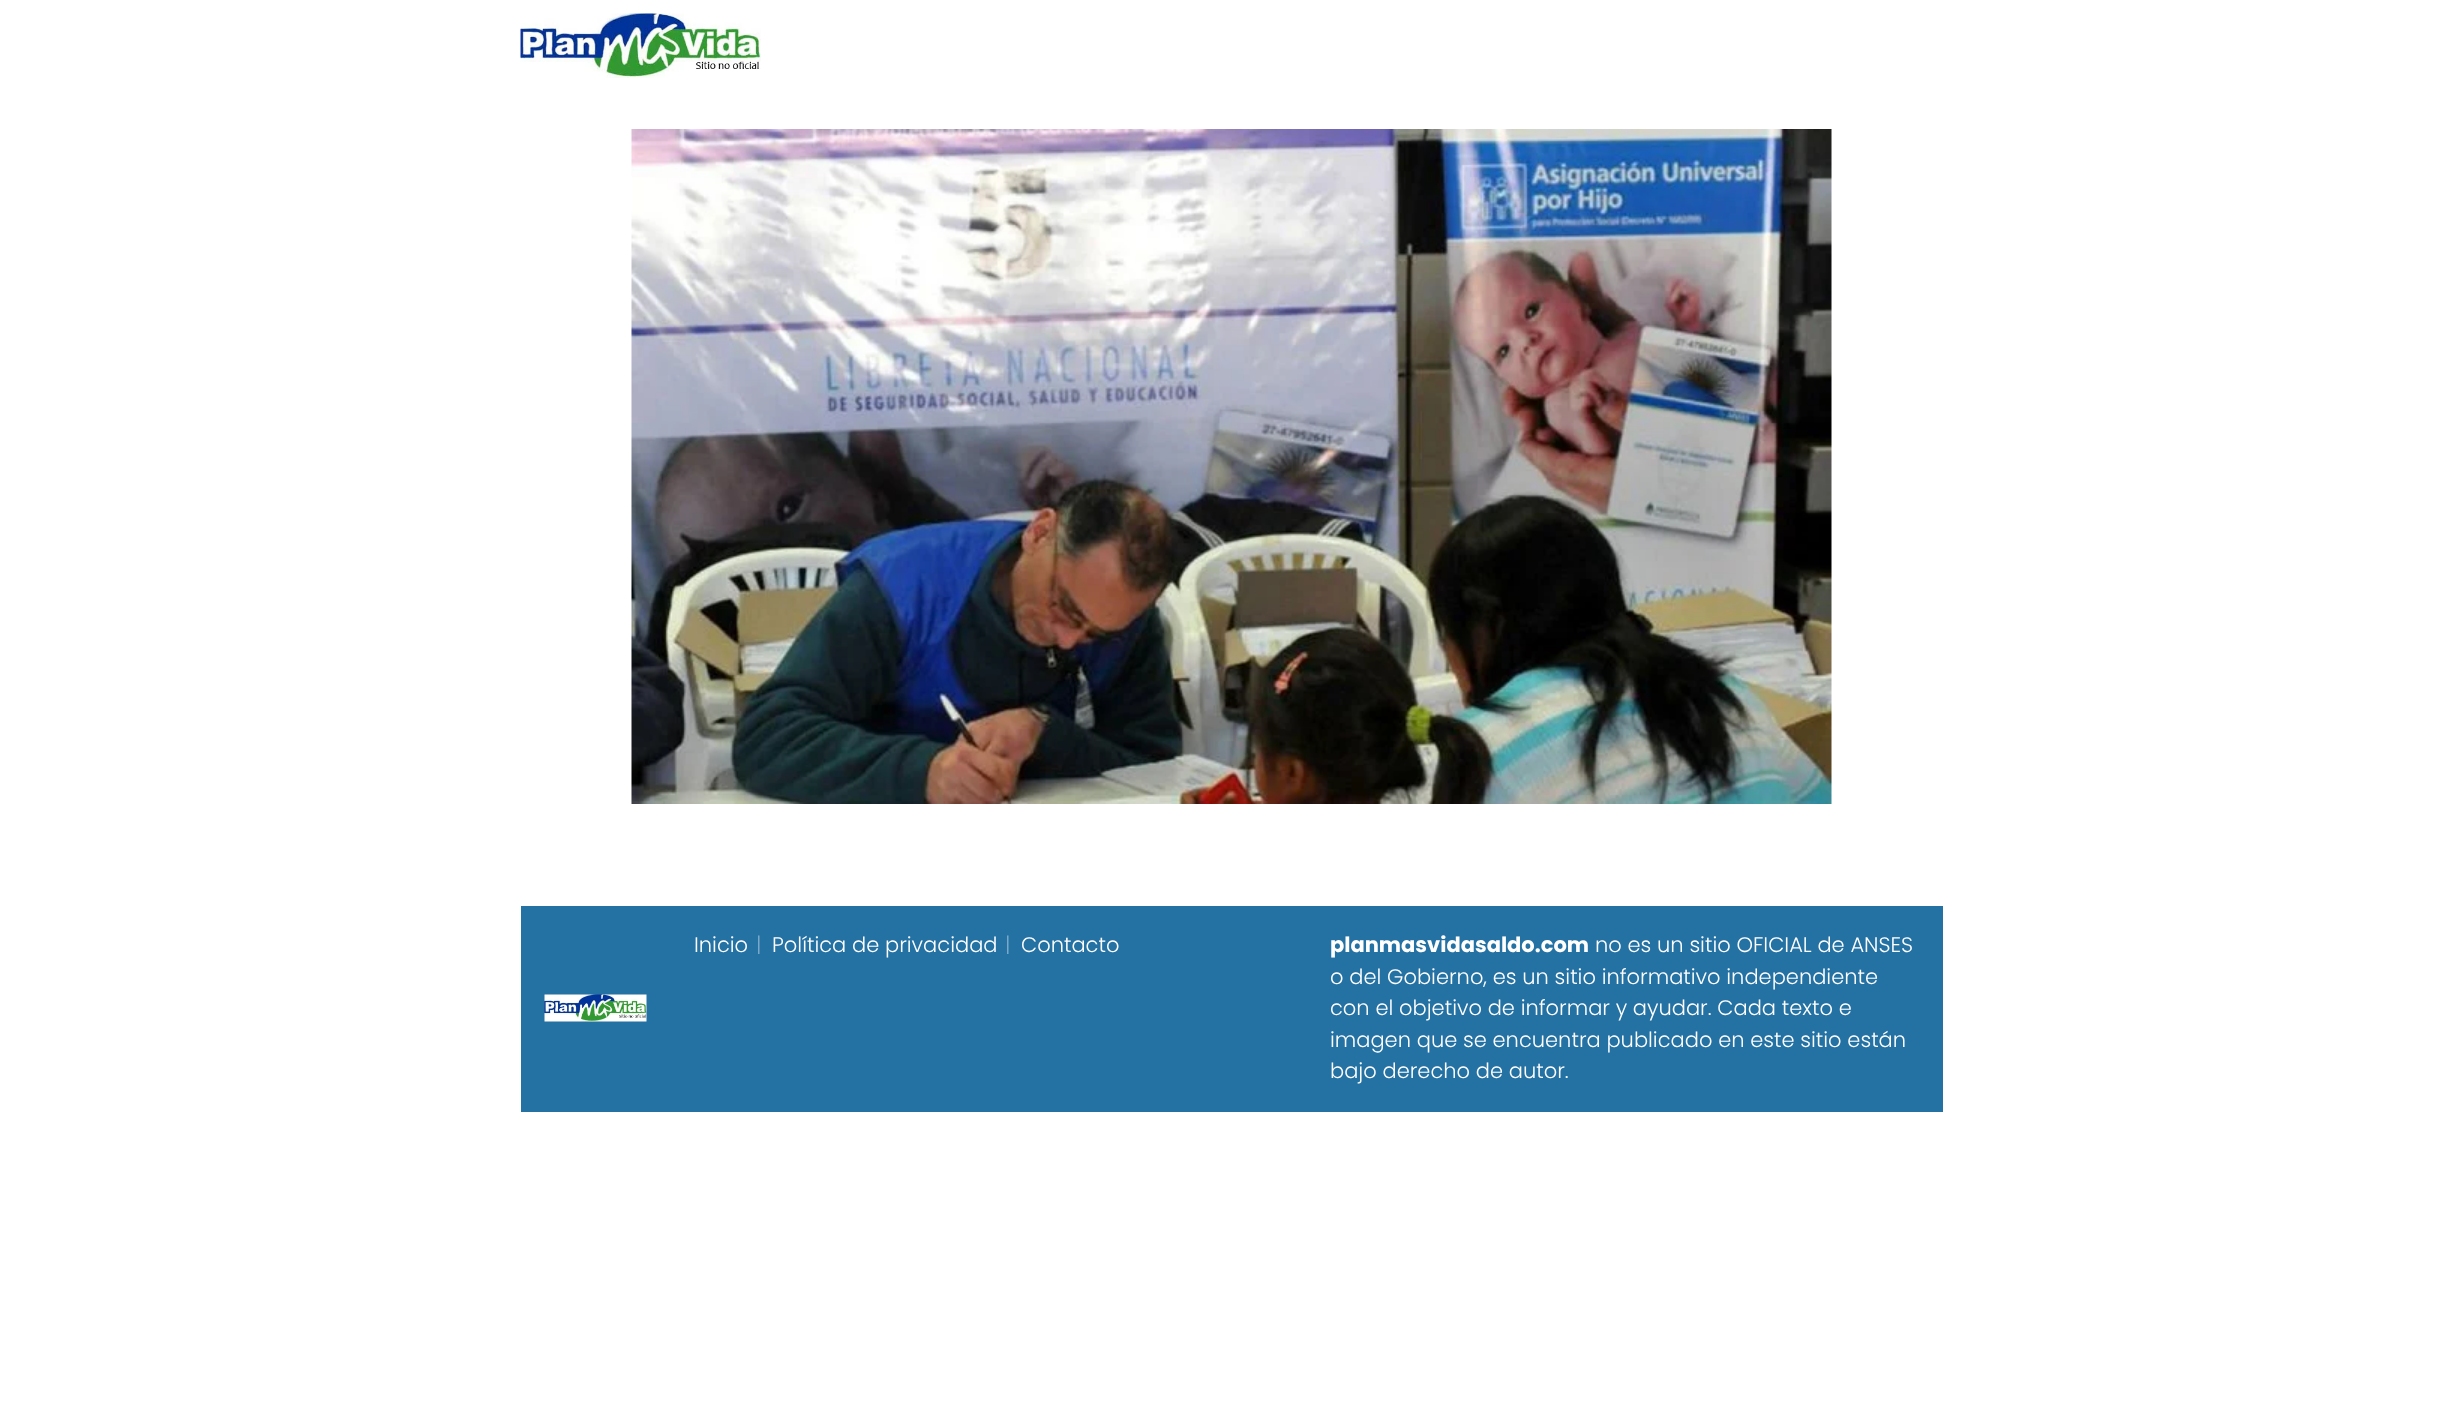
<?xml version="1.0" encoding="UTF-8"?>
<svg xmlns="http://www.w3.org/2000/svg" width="2461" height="1412">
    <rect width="100%" height="100%" fill="#FFFFFF"/>
    <image x="520" y="13" width="241" height="65" href="img_01.png"/>
    <image x="631" y="129" width="1201" height="675" href="img_02.png"/>
    <rect x="521" y="906" width="1422" height="206" fill="#2471A3"/>
    <image x="544" y="994" width="103" height="28" href="img_03.png"/>
    <text x="694" y="952" font-family="Poppins" font-size="21" font-weight="300" fill="#FFFFFF">Inicio</text>
    <text x="756" y="952" font-family="Poppins" font-size="21" font-weight="300" fill="#7CAAC8">|</text>
    <text x="772" y="952" font-family="Poppins" font-size="21" font-weight="300" fill="#FFFFFF">Política de privacidad</text>
    <text x="1005" y="952" font-family="Poppins" font-size="21" font-weight="300" fill="#7CAAC8">|</text>
    <text x="1021" y="952" font-family="Poppins" font-size="21" font-weight="300" fill="#FFFFFF">Contacto</text>
    <text x="1330" y="952" font-family="Poppins" font-size="21" font-weight="700" fill="#FFFFFF">planmasvidasaldo.com</text>
    <text x="1595" y="952" font-family="Poppins" font-size="21" font-weight="300" fill="#FFFFFF">no es un sitio OFICIAL de ANSES</text>
    <text font-family="Poppins" font-size="21" font-weight="300" fill="#FFFFFF">
        <tspan x="1330" y="984">o del Gobierno, es un sitio informativo independiente</tspan>
        <tspan x="1330" y="1015">con el objetivo de informar y ayudar. Cada texto e</tspan>
        <tspan x="1330" y="1047">imagen que se encuentra publicado en este sitio están</tspan>
        <tspan x="1330" y="1078">bajo derecho de autor.</tspan>
    </text>
</svg>
